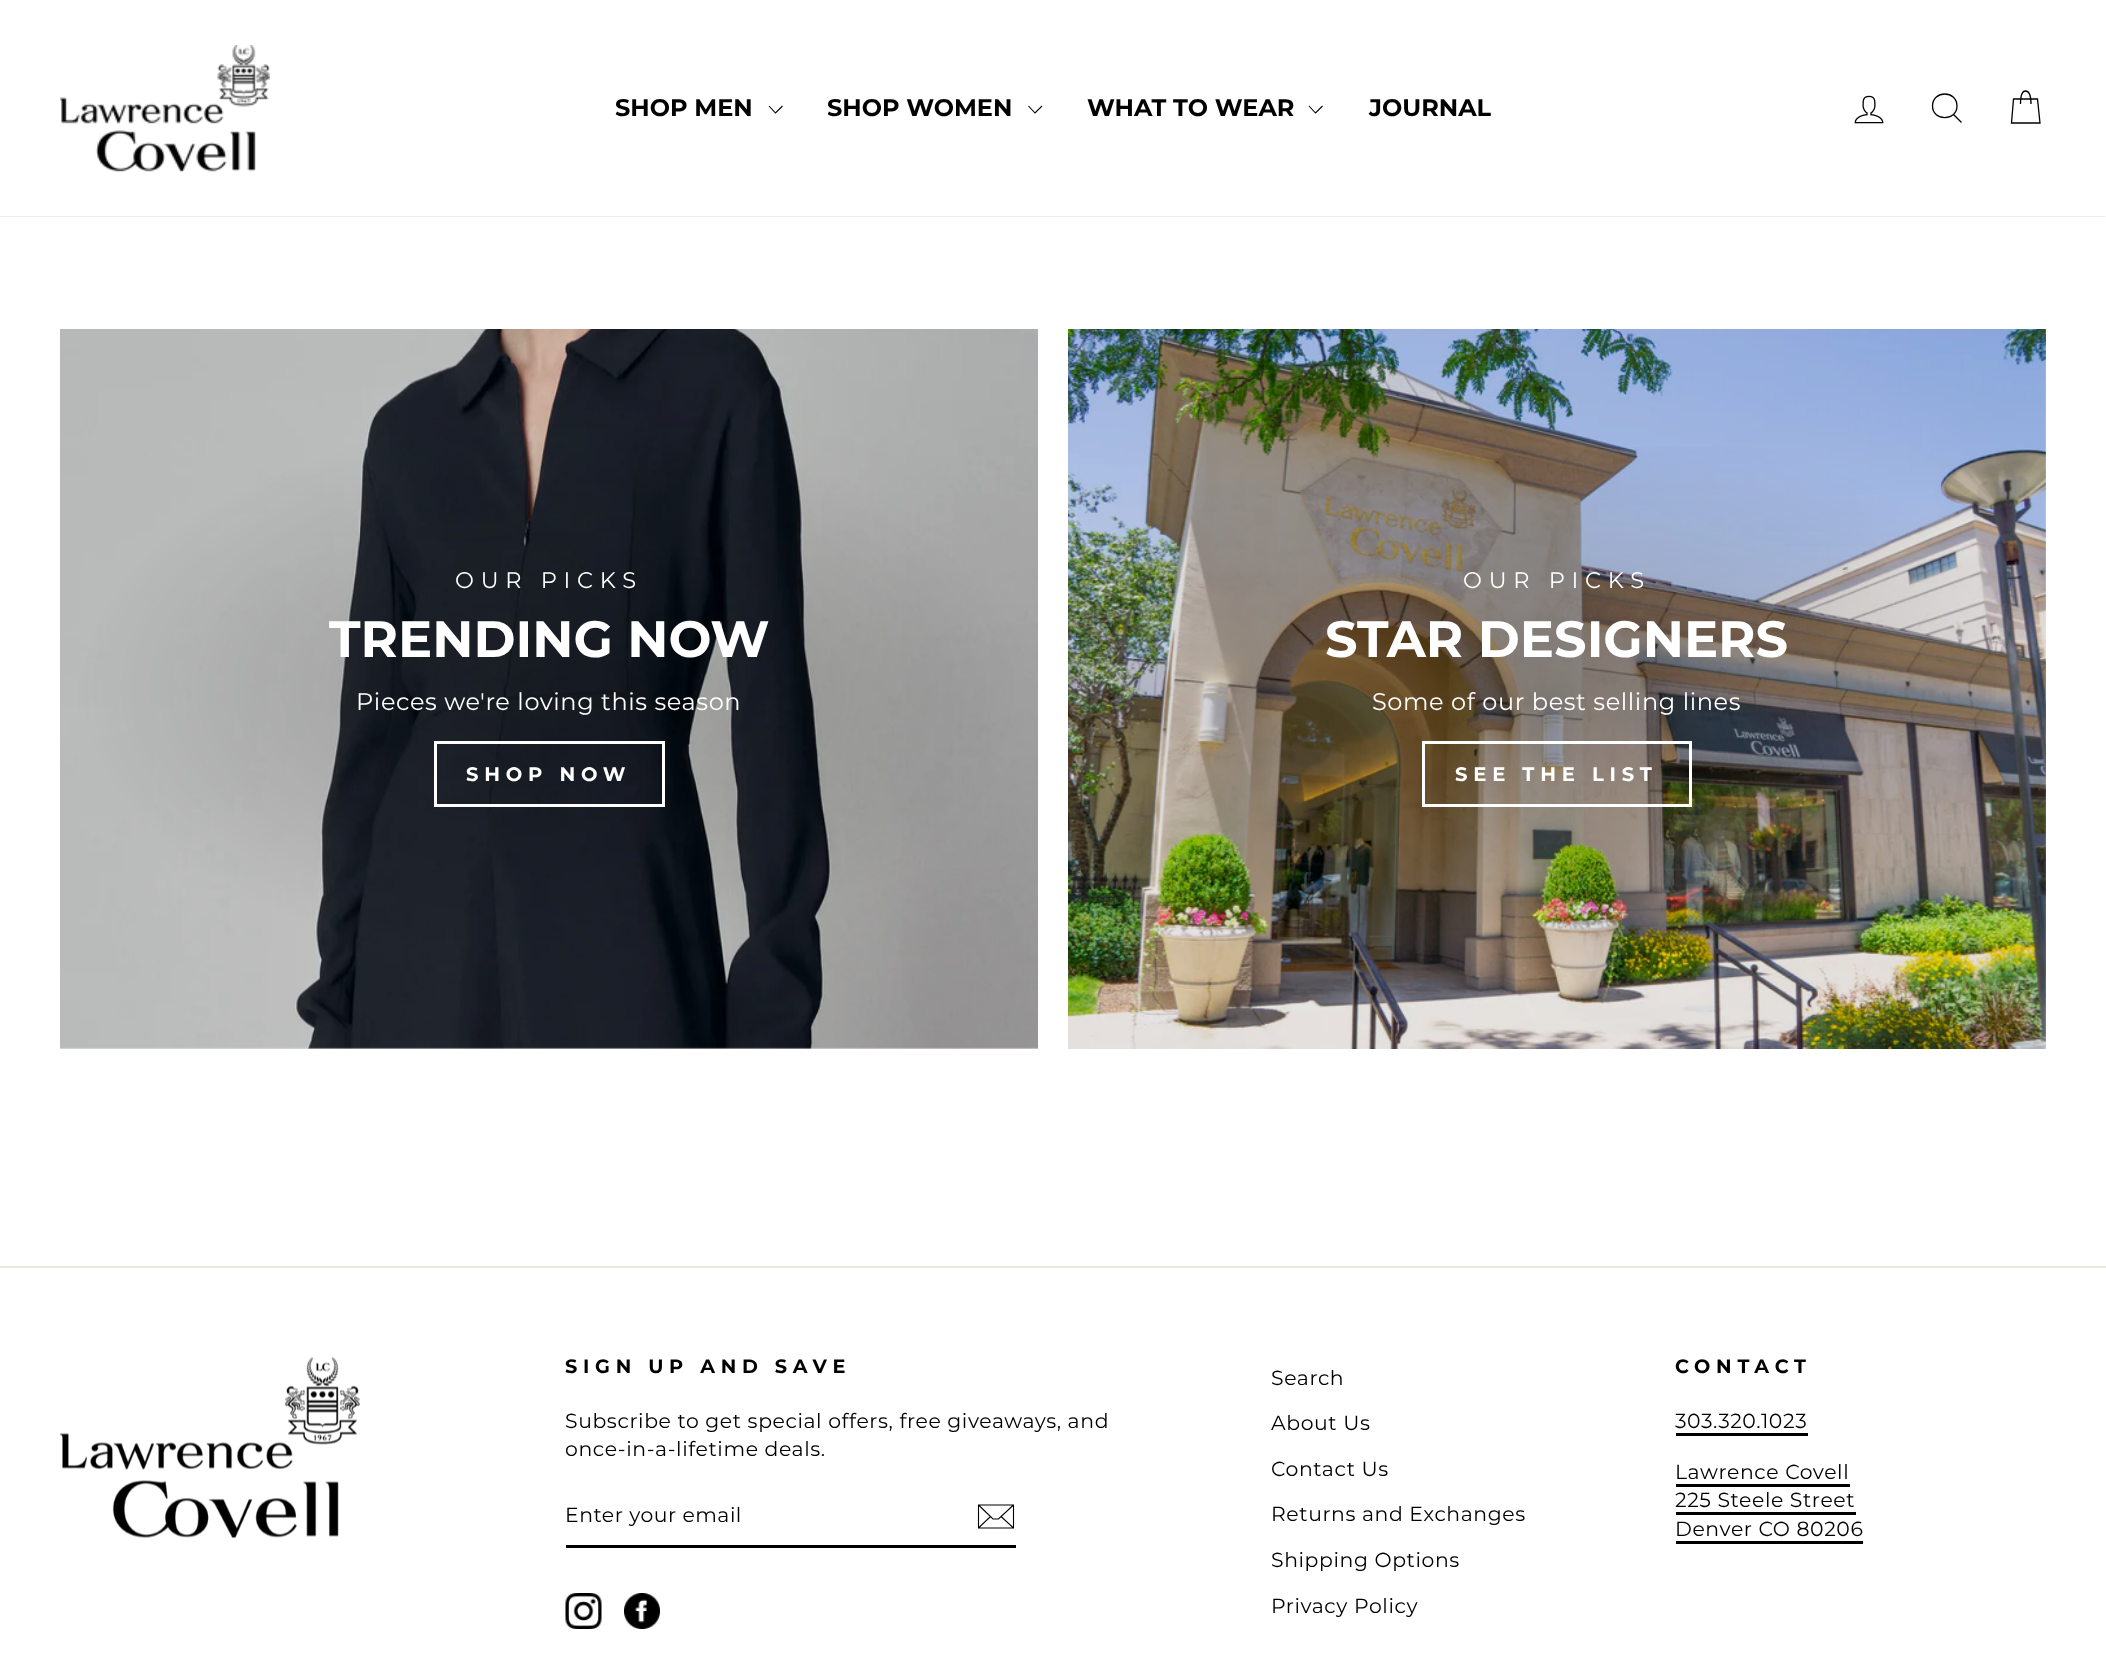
<?xml version="1.0" encoding="UTF-8"?>
<svg xmlns="http://www.w3.org/2000/svg" width="2106" height="1653">
    <defs>
        <clipPath id="clip1"><rect x="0" y="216" width="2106" height="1"/></clipPath>
        <filter id="blur1" x="-50%" y="-200%" width="200%" height="500%"><feGaussianBlur stdDeviation="1"/></filter>
        <radialGradient id="g1" gradientUnits="userSpaceOnUse" cx="0" cy="0" r="1" gradientTransform="matrix(819 0 0 452 1557 689)"><stop offset="0" stop-color="#000000" stop-opacity="0.2"/><stop offset="0.6" stop-color="#000000" stop-opacity="0"/></radialGradient>
    </defs>
    <rect width="100%" height="100%" fill="#FFFFFF"/>
    <rect x="60" y="1047" width="978" height="2" fill="#E6E6E6"/>
    <g clip-path="url(#clip1)">
        <rect x="0" y="0" width="2106" height="216" fill="#000000" fill-opacity="0.2" filter="url(#blur1)"/>
    </g>
    <image x="60" y="45" width="210" height="127" href="img_01.png"/>
    <text x="615" y="116" font-family="Montserrat" font-size="24" font-weight="700" fill="#000000">SHOP MEN</text>
    <path d="M 769 106 L 775.5 113 L 782.5 106" fill="none" stroke="#000000" stroke-width="1.1"/>
    <text x="827" y="116" font-family="Montserrat" font-size="24" font-weight="700" fill="#000000">SHOP WOMEN</text>
    <path d="M 1028.5 106 L 1035 113 L 1042 106" fill="none" stroke="#000000" stroke-width="1.1"/>
    <text x="1087" y="116" font-family="Montserrat" font-size="24" font-weight="700" fill="#000000">WHAT TO WEAR</text>
    <path d="M 1309 106 L 1315.5 113 L 1322.5 106" fill="none" stroke="#000000" stroke-width="1.1"/>
    <text x="1369" y="116" font-family="Montserrat" font-size="24" font-weight="700" fill="#000000">JOURNAL</text>
    <image x="1854" y="95" width="30" height="29" href="img_02.png"/>
    <path d="M 1957 106 C 1957 121.5 1932.5 121.5 1932.5 106 C 1932.5 90 1957 90 1957 106 Z M 1961.5 122.5 L 1953.5 114.5" fill="none" stroke="#000000" stroke-width="1.3"/>
    <path d="M 2020.5 104 C 2020.5 93.5 2022.5 91 2025.5 91 C 2028.5 91 2031 93.5 2031 104 M 2013.5 99 H 2037.5 L 2040 123 H 2011.5 Z" fill="none" stroke="#000000" stroke-width="1.3"/>
    <image x="60" y="329" width="978" height="720" href="img_03.png"/>
    <text x="455" y="588" font-family="Montserrat" font-size="22.5" letter-spacing="6.75" fill="#FFFFFF">OUR PICKS</text>
    <text x="329" y="657" font-family="Montserrat" font-size="51" font-weight="700" fill="#FFFFFF">TRENDING NOW</text>
    <text x="356" y="710" font-family="Montserrat" font-size="24" letter-spacing="0.6" fill="#FFFFFF">Pieces we're loving this season</text>
    <rect x="435.5" y="742.5" width="228" height="63" fill="none" stroke="#FFFFFF" stroke-width="3"/>
    <text x="466" y="781" font-family="Montserrat" font-size="19.5" font-weight="700" letter-spacing="5.8" fill="#FFFFFF">SHOP NOW</text>
    <image x="1068" y="329" width="978" height="720" href="img_04.png"/>
    <rect x="1118" y="447" width="878" height="484" fill="url(#g1)"/>
    <text x="1463" y="588" font-family="Montserrat" font-size="22.5" letter-spacing="6.75" fill="#FFFFFF">OUR PICKS</text>
    <text x="1325" y="657" font-family="Montserrat" font-size="51" font-weight="700" fill="#FFFFFF">STAR DESIGNERS</text>
    <text x="1372" y="710" font-family="Montserrat" font-size="24" letter-spacing="0.6" fill="#FFFFFF">Some of our best selling lines</text>
    <rect x="1423.5" y="742.5" width="267" height="63" fill="none" stroke="#FFFFFF" stroke-width="3"/>
    <text x="1455" y="781" font-family="Montserrat" font-size="19.5" font-weight="700" letter-spacing="5.8" fill="#FFFFFF">SEE THE LIST</text>
    <rect x="0" y="1266" width="2106" height="2" fill="#E8E8E1"/>
    <image x="60" y="1357" width="300" height="181" href="img_05.png"/>
    <text x="565" y="1373" font-family="Montserrat" font-size="19.25" font-weight="700" letter-spacing="5.75" fill="#000000">SIGN UP AND SAVE</text>
    <text font-family="Montserrat" font-size="20.4" letter-spacing="0.6" fill="#000000">
        <tspan x="565" y="1428">Subscribe to get special offers, free giveaways, and</tspan>
        <tspan x="565" y="1456">once-in-a-lifetime deals.</tspan>
    </text>
    <rect x="566" y="1545" width="450" height="3" fill="#000000"/>
    <text x="565" y="1522" font-family="Montserrat" font-size="20.4" letter-spacing="0.5" fill="#000000">Enter your email</text>
    <path d="M 1013.5 1528 H 978.5 V 1505 H 1013.5 Z M 978.5 1505 L 993 1519 H 998.5 L 1013.5 1505 M 990.5 1516.5 L 979 1527.5 M 1013 1527.5 L 1001 1516.5" fill="none" stroke="#000000" stroke-width="1.1"/>
    <image x="565" y="1593" width="37" height="36" href="img_06.png"/>
    <image x="624" y="1593" width="36" height="36" href="img_07.png"/>
    <text x="1271" y="1385" font-family="Montserrat" font-size="20.4" letter-spacing="0.6" fill="#000000">Search</text>
    <text x="1271" y="1430" font-family="Montserrat" font-size="20.4" letter-spacing="0.6" fill="#000000">About Us</text>
    <text x="1271" y="1476" font-family="Montserrat" font-size="20.4" letter-spacing="0.6" fill="#000000">Contact Us</text>
    <text x="1271" y="1521" font-family="Montserrat" font-size="20.4" letter-spacing="0.6" fill="#000000">Returns and Exchanges</text>
    <text x="1271" y="1567" font-family="Montserrat" font-size="20.4" letter-spacing="0.6" fill="#000000">Shipping Options</text>
    <text x="1271" y="1613" font-family="Montserrat" font-size="20.4" letter-spacing="0.6" fill="#000000">Privacy Policy</text>
    <text x="1675" y="1373" font-family="Montserrat" font-size="19.25" font-weight="700" letter-spacing="5.75" fill="#000000">CONTACT</text>
    <text x="1675" y="1428" font-family="Montserrat" font-size="20.4" letter-spacing="0.6" fill="#000000">303.320.1023</text>
    <rect x="1676" y="1433" width="132" height="3" fill="#000000"/>
    <text x="1675" y="1479" font-family="Montserrat" font-size="20.4" letter-spacing="0.6" fill="#000000">Lawrence Covell</text>
    <rect x="1676" y="1484" width="174" height="3" fill="#000000"/>
    <text x="1675" y="1507" font-family="Montserrat" font-size="20.4" letter-spacing="0.6" fill="#000000">225 Steele Street</text>
    <rect x="1676" y="1512" width="180" height="3" fill="#000000"/>
    <text x="1675" y="1536" font-family="Montserrat" font-size="20.4" letter-spacing="0.6" fill="#000000">Denver CO 80206</text>
    <rect x="1676" y="1541" width="187" height="3" fill="#000000"/>
</svg>
